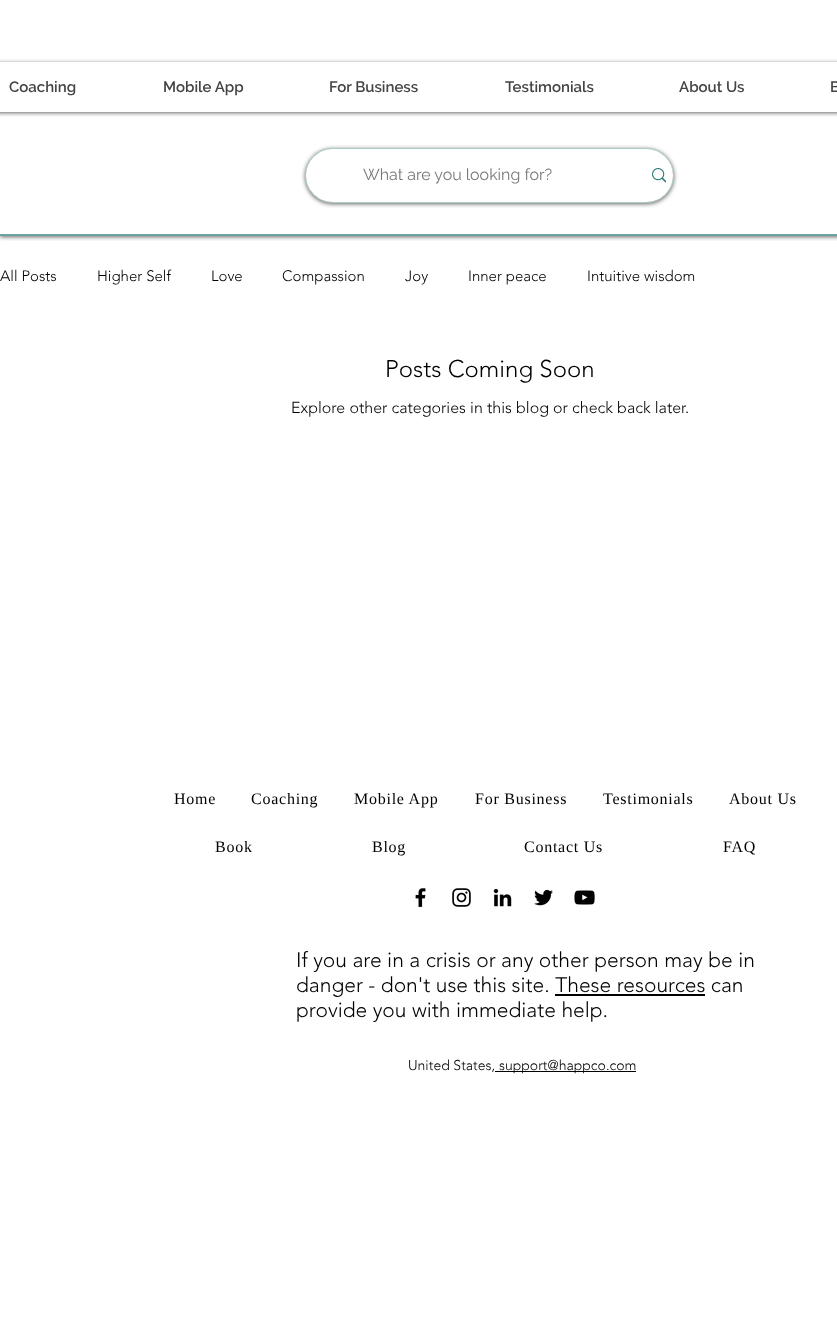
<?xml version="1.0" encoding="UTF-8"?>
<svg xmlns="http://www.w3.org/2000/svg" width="837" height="1328">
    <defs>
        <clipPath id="clip1"><rect x="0" y="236" width="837" height="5"/></clipPath>
        <filter id="blur1" x="-50%" y="-200%" width="200%" height="500%"><feGaussianBlur stdDeviation="2"/></filter>
        <clipPath id="clip2"><path d="M 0 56 H 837 V 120 H 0 Z M -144 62 H 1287 C 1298 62 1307 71 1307 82 V 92 C 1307 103 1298 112 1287 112 H -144 C -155 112 -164 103 -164 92 V 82 C -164 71 -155 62 -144 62 Z" clip-rule="evenodd"/></clipPath>
    </defs>
    <rect width="100%" height="100%" fill="#FFFFFF"/>
    <g clip-path="url(#clip1)">
        <rect x="0" y="1" width="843" height="236" fill="#000000" fill-opacity="0.6" filter="url(#blur1)"/>
    </g>
    <rect x="0" y="234" width="837" height="2" fill="#6BA39E"/>
    <g clip-path="url(#clip2)">
        <rect x="-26" y="63" width="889" height="50" rx="20" fill="#000000" fill-opacity="0.6" filter="url(#blur1)"/>
    </g>
    <text x="9" y="92" font-family="Raleway" font-size="15" font-weight="600" fill="#444444">Coaching</text>
    <text x="163" y="92" font-family="Raleway" font-size="15" font-weight="600" fill="#444444">Mobile App</text>
    <text x="329" y="92" font-family="Raleway" font-size="15" font-weight="600" fill="#444444">For Business</text>
    <text x="505" y="92" font-family="Raleway" font-size="15" font-weight="600" fill="#444444">Testimonials</text>
    <text x="679" y="92" font-family="Raleway" font-size="15" font-weight="600" fill="#444444">About Us</text>
    <text x="830" y="92" font-family="Raleway" font-size="15" font-weight="600" fill="#444444">B</text>
    <rect x="305" y="149" width="369" height="55" rx="27.5" fill="#000000" fill-opacity="0.6" filter="url(#blur1)"/>
    <rect x="305.5" y="148.5" width="368" height="54" rx="27" fill="none" stroke="#ABD0BC"/>
    <rect x="306" y="149" width="367" height="53" rx="26.5" fill="#FFFFFF"/>
    <text x="363" y="180" font-family="Raleway" font-size="16" fill="#787878">What are you looking for?</text>
    <image x="652" y="168" width="14" height="15" href="img_01.png"/>
    <text x="0" y="281" font-family="'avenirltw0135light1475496'" font-size="15" font-weight="300" fill="#000000">All Posts</text>
    <text x="97" y="281" font-family="'avenirltw0135light1475496'" font-size="15" font-weight="300" fill="#000000">Higher Self</text>
    <text x="211" y="281" font-family="'avenirltw0135light1475496'" font-size="15" font-weight="300" fill="#000000">Love</text>
    <text x="282" y="281" font-family="'avenirltw0135light1475496'" font-size="15" font-weight="300" fill="#000000">Compassion</text>
    <text x="405" y="281" font-family="'avenirltw0135light1475496'" font-size="15" font-weight="300" fill="#000000">Joy</text>
    <text x="468" y="281" font-family="'avenirltw0135light1475496'" font-size="15" font-weight="300" fill="#000000">Inner peace</text>
    <text x="587" y="281" font-family="'avenirltw0135light1475496'" font-size="15" font-weight="300" fill="#000000">Intuitive wisdom</text>
    <text x="385" y="377" font-family="'avenirltw0135light1475496'" font-size="24" font-weight="300" fill="#000000">Posts Coming Soon</text>
    <text x="291" y="413" font-family="'avenirltw0135light1475496'" font-size="16" font-weight="300" fill="#000000">Explore other categories in this blog or check back later.</text>
    <text x="174" y="804" font-family="Liberation Serif" font-size="16" letter-spacing="0.75" fill="#000000">Home</text>
    <text x="251" y="804" font-family="Liberation Serif" font-size="16" letter-spacing="0.75" fill="#000000">Coaching</text>
    <text x="354" y="804" font-family="Liberation Serif" font-size="16" letter-spacing="0.75" fill="#000000">Mobile App</text>
    <text x="475" y="804" font-family="Liberation Serif" font-size="16" letter-spacing="0.75" fill="#000000">For Business</text>
    <text x="603" y="804" font-family="Liberation Serif" font-size="16" letter-spacing="0.75" fill="#000000">Testimonials</text>
    <text x="729" y="804" font-family="Liberation Serif" font-size="16" letter-spacing="0.75" fill="#000000">About Us</text>
    <text x="215" y="852" font-family="Liberation Serif" font-size="16" letter-spacing="0.75" fill="#000000">Book</text>
    <text x="372" y="852" font-family="Liberation Serif" font-size="16" letter-spacing="0.75" fill="#000000">Blog</text>
    <text x="524" y="852" font-family="Liberation Serif" font-size="16" letter-spacing="0.75" fill="#000000">Contact Us</text>
    <text x="723" y="852" font-family="Liberation Serif" font-size="16" letter-spacing="0.75" fill="#000000">FAQ</text>
    <image x="415" y="888" width="11" height="20" href="img_02.png"/>
    <image x="452" y="888" width="19" height="19" href="img_03.png"/>
    <image x="493" y="888" width="19" height="19" href="img_04.png"/>
    <image x="534" y="889" width="19" height="17" href="img_05.png"/>
    <image x="574" y="890" width="21" height="15" href="img_06.png"/>
    <text font-family="'avenirltw0135light1475496'" font-size="21" font-weight="300" fill="#000000">
        <tspan x="296" y="967">If you are in a crisis or any other person may be in</tspan>
        <tspan x="296" y="992">danger - don't use this site. These resources can</tspan>
    </text>
    <rect x="555" y="994" width="150" height="2" fill="#000000"/>
    <text x="296" y="1017" font-family="'avenirltw0135light1475496'" font-size="21" font-weight="300" fill="#000000">provide you with immediate help.</text>
    <text x="408" y="1070" font-family="'avenirltw0135light1475496'" font-size="14" font-weight="300" fill="#000000">United States,</text>
    <rect x="495" y="1071" width="141" height="1" fill="#000000"/>
    <text x="499" y="1070" font-family="'avenirltw0135light1475496'" font-size="14" font-weight="300" fill="#000000">support@happco.com</text>
</svg>
